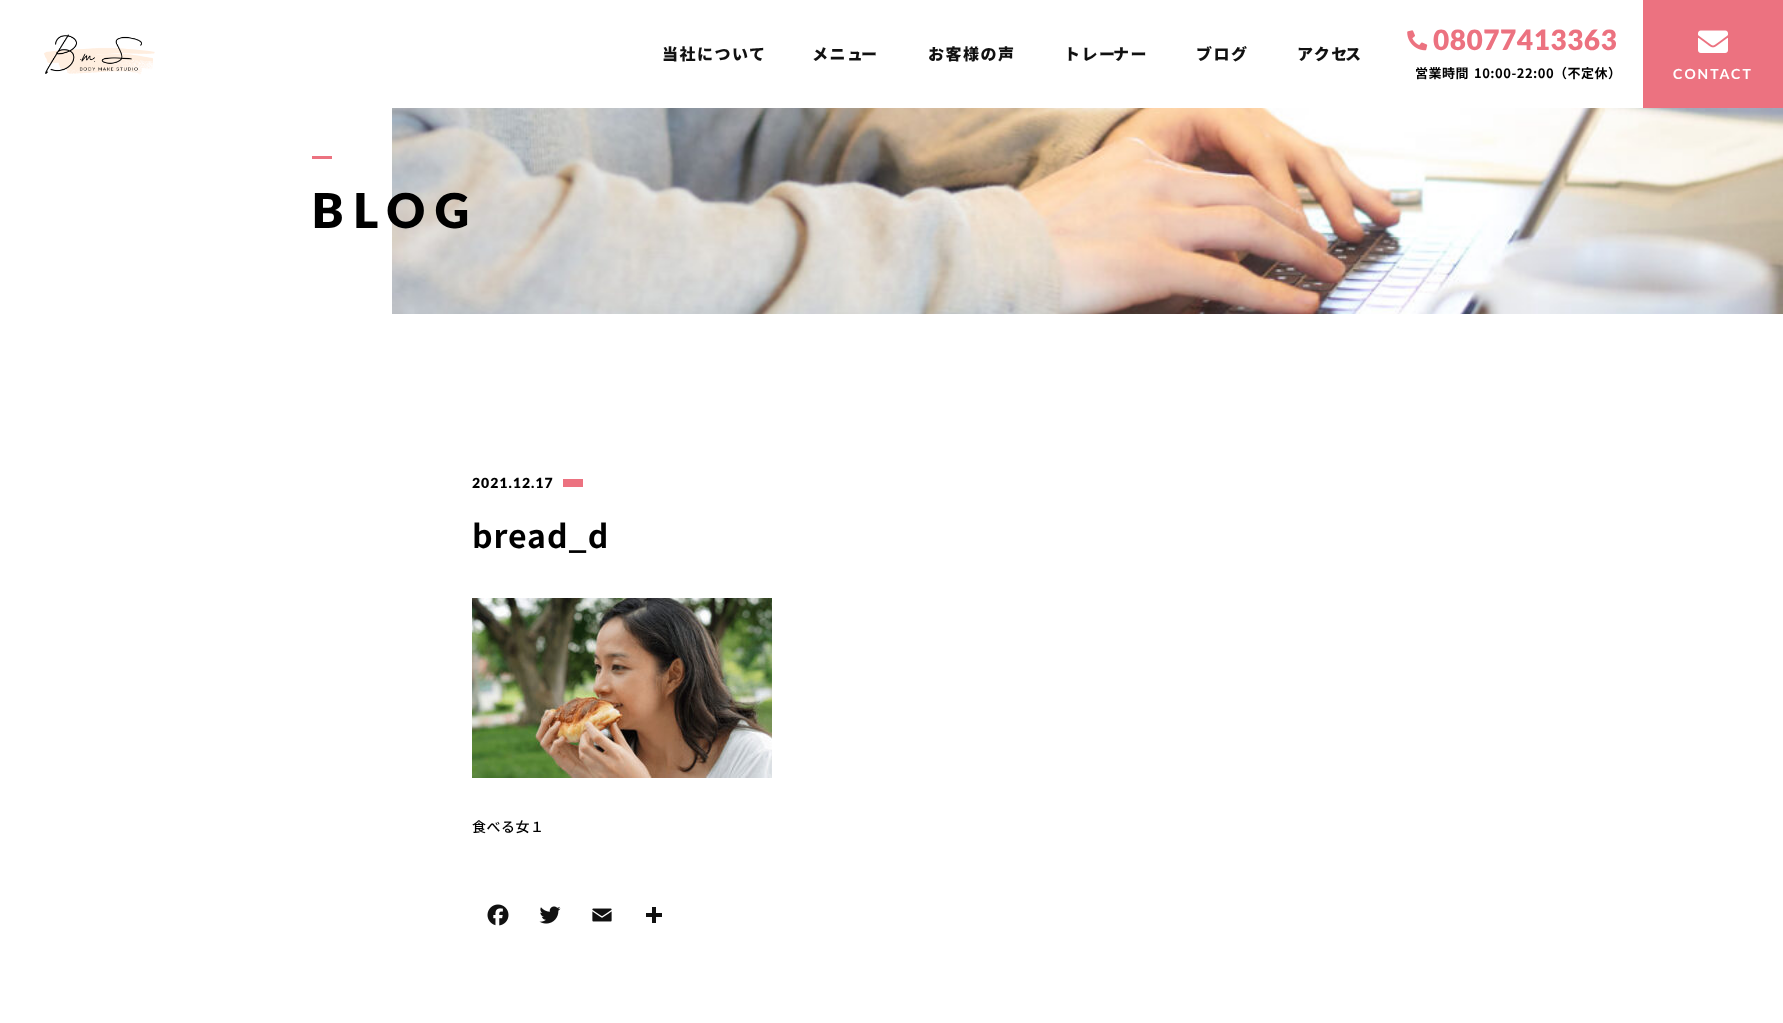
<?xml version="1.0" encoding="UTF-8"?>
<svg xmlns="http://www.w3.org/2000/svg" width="1783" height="1023">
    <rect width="100%" height="100%" fill="#FFFFFF"/>
    <image x="44" y="34" width="111" height="41" href="img_01.png"/>
    <text x="662" y="60" font-family="Noto Sans JP" font-size="16" font-weight="900" letter-spacing="1.5" fill="#111111">当社について</text>
    <text x="812" y="60" font-family="Noto Sans JP" font-size="16" font-weight="900" letter-spacing="1.5" fill="#111111">メニュ</text>
    <text x="861" y="60" font-family="Noto Sans JP" font-size="16" font-weight="900" letter-spacing="1.5" fill="#111111">ー</text>
    <text x="928" y="60" font-family="Noto Sans JP" font-size="16" font-weight="900" letter-spacing="1.5" fill="#111111">お客様の声</text>
    <text x="1064" y="60" font-family="Noto Sans JP" font-size="16" font-weight="900" letter-spacing="1.5" fill="#111111">トレー</text>
    <text x="1113" y="60" font-family="Noto Sans JP" font-size="16" font-weight="900" letter-spacing="1.5" fill="#111111">ナー</text>
    <text x="1196" y="60" font-family="Noto Sans JP" font-size="16" font-weight="900" letter-spacing="1.5" fill="#111111">ブログ</text>
    <text x="1297" y="60" font-family="Noto Sans JP" font-size="16" font-weight="900" letter-spacing="1.5" fill="#111111">アクセ</text>
    <text x="1345" y="60" font-family="Noto Sans JP" font-size="16" font-weight="900" letter-spacing="1.5" fill="#111111">ス</text>
    <image x="1407" y="30" width="21" height="21" href="img_02.png"/>
    <text x="1433" y="50" font-family="Lato" font-size="28" font-weight="900" letter-spacing="0.5" fill="#EC7280">08077413363</text>
    <text x="1415" y="78" font-family="Noto Sans JP" font-size="13" font-weight="700" letter-spacing="0.5" fill="#000000">営業時間</text>
    <text x="1474" y="78" font-family="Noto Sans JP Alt" font-size="13" font-weight="700" letter-spacing="0.5" fill="#000000">10:00-22:00（不定休）</text>
    <rect x="1643" y="0" width="140" height="108" fill="#EC7280"/>
    <image x="1698" y="30" width="30" height="23" href="img_03.png"/>
    <text x="1673" y="79" font-family="Lato" font-size="14" font-weight="700" letter-spacing="2" fill="#FFFFFF">CONTACT</text>
    <rect x="312" y="156" width="20" height="3" fill="#EC7280"/>
    <image x="392" y="108" width="1391" height="206" href="img_04.png"/>
    <text x="312" y="228" font-family="Lato" font-size="48" font-weight="900" letter-spacing="10" fill="#000000">BLOG</text>
    <text x="472" y="488" font-family="Lato" font-size="14" font-weight="900" letter-spacing="1" fill="#000000">2021.12.17</text>
    <rect x="563" y="479" width="20" height="8" fill="#EC7280"/>
    <text x="472" y="548" font-family="Noto Sans JP" font-size="32" font-weight="700" letter-spacing="1" fill="#000000">bread_d</text>
    <image x="472" y="598" width="300" height="180" href="img_05.png"/>
    <text x="472" y="832" font-family="Noto Sans JP" font-size="14" font-weight="500" letter-spacing="0.5" fill="#000000">食べる女１</text>
    <image x="487" y="904" width="22" height="22" href="img_06.png"/>
    <image x="539" y="906" width="22" height="18" href="img_07.png"/>
    <image x="592" y="908" width="20" height="14" href="img_08.png"/>
    <rect x="652" y="907" width="4" height="16" fill="#111111"/>
    <rect x="646" y="913" width="16" height="4" fill="#111111"/>
</svg>
